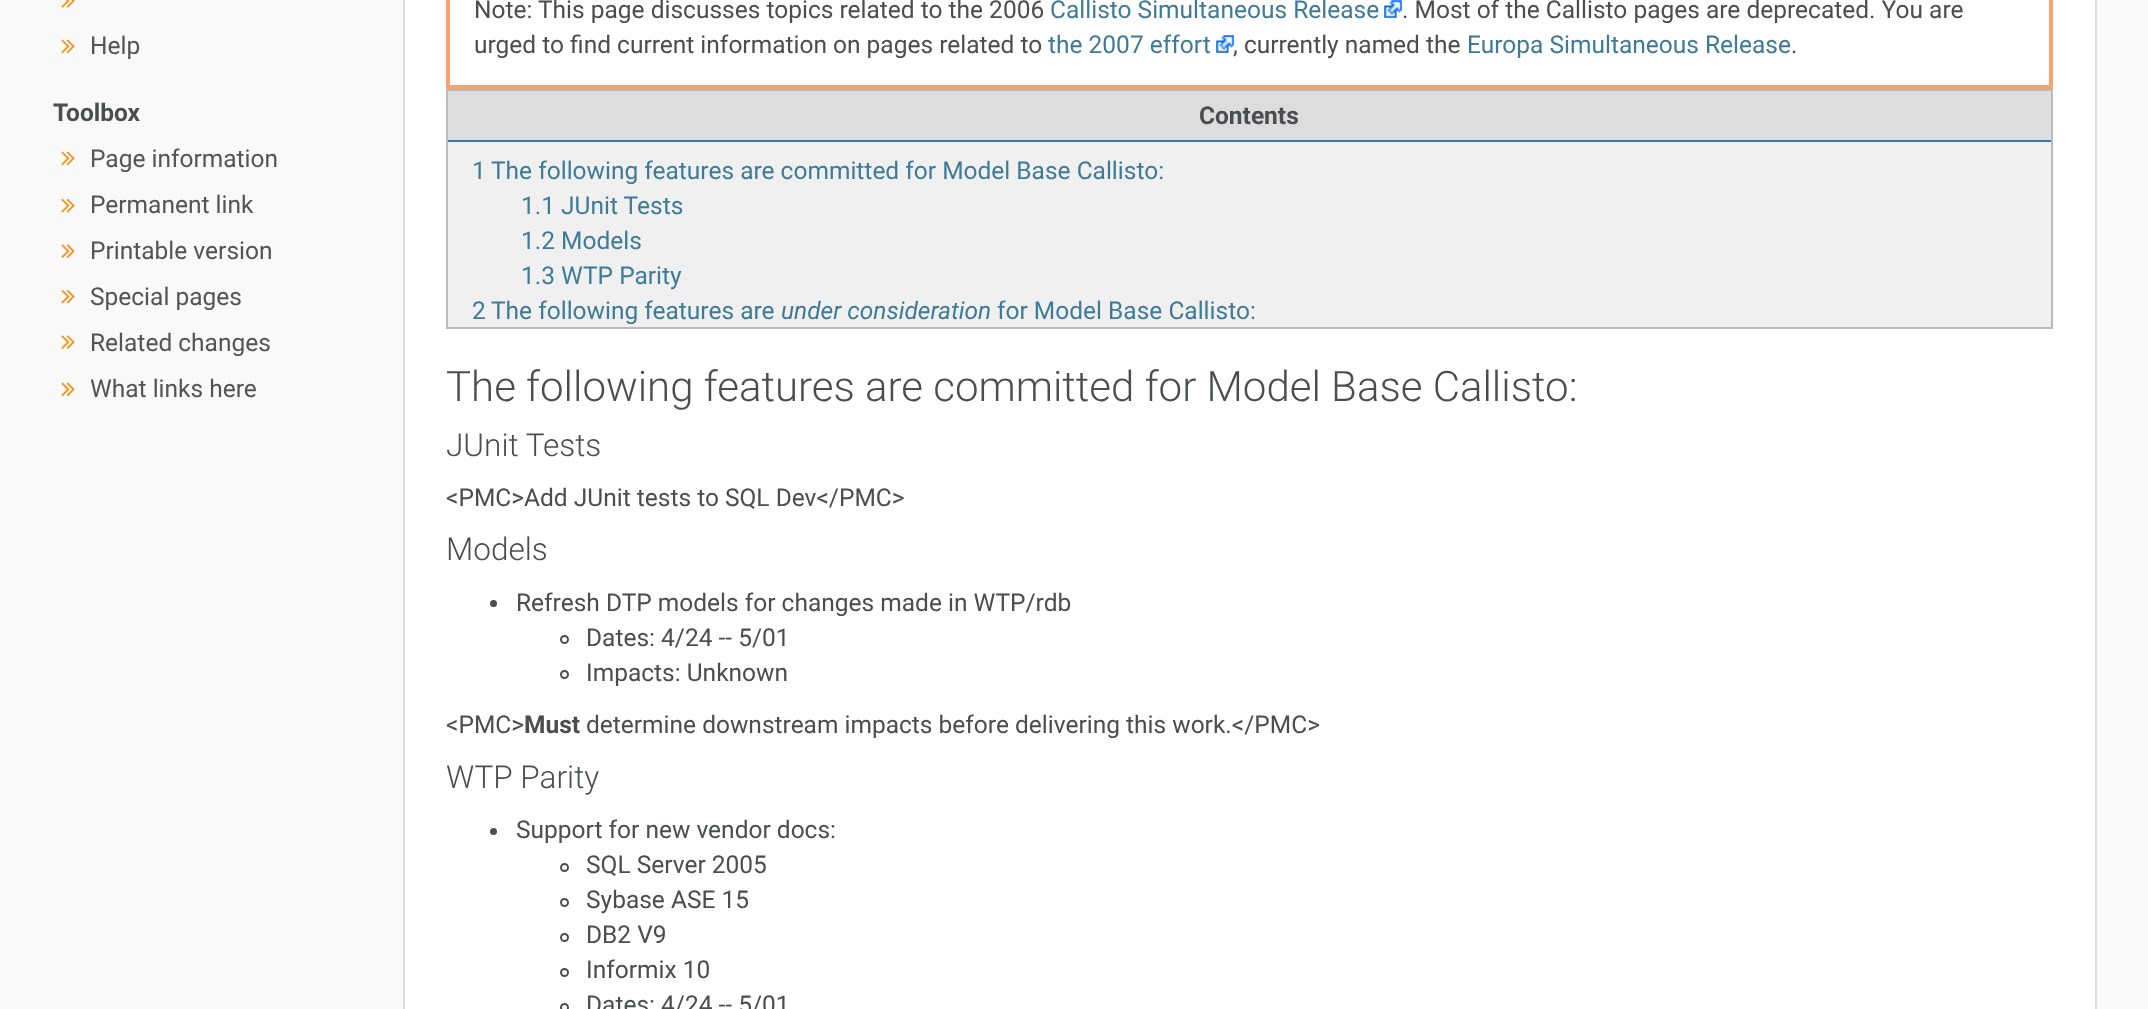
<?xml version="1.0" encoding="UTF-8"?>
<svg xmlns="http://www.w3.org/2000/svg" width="2148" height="1009">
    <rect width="100%" height="100%" fill="#F9F9F9"/>
    <image x="61" y="0" width="14" height="8" href="img_01.png"/>
    <image x="61" y="39" width="14" height="15" href="img_02.png"/>
    <text x="90" y="54" font-family="Roboto" font-size="24.5" fill="#545454">Help</text>
    <text x="53" y="121" font-family="Roboto" font-size="24.5" font-weight="700" fill="#4C4D4E">Toolbox</text>
    <image x="61" y="151" width="14" height="15" href="img_02.png"/>
    <text x="90" y="167" font-family="Roboto" font-size="24.5" fill="#545454">Page information</text>
    <image x="61" y="198" width="14" height="15" href="img_03.png"/>
    <text x="90" y="213" font-family="Roboto" font-size="24.5" fill="#545454">Permanent link</text>
    <image x="61" y="244" width="14" height="14" href="img_04.png"/>
    <text x="90" y="259" font-family="Roboto" font-size="24.5" fill="#545454">Printable version</text>
    <image x="61" y="289" width="14" height="15" href="img_03.png"/>
    <text x="90" y="305" font-family="Roboto" font-size="24.5" fill="#545454">Special pages</text>
    <image x="61" y="335" width="14" height="14" href="img_04.png"/>
    <text x="90" y="351" font-family="Roboto" font-size="24.5" fill="#545454">Related changes</text>
    <image x="61" y="382" width="14" height="15" href="img_02.png"/>
    <text x="90" y="397" font-family="Roboto" font-size="24.5" fill="#545454">What links here</text>
    <rect x="405" y="0" width="1690" height="1009" fill="#FFFFFF"/>
    <rect x="2095" y="0" width="2" height="1009" fill="#DDDDDD"/>
    <rect x="403" y="0" width="2" height="1009" fill="#DDDDDD"/>
    <rect x="448" y="-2" width="1603" height="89" fill="none" stroke="#FBA16C" stroke-width="4"/>
    <text x="474" y="18" font-family="Roboto" font-size="24.5" fill="#4C4D4E">Note: This page discusses topics related to the 2006</text>
    <text x="1050" y="18" font-family="Roboto" font-size="24.5" fill="#3F7B96">Callisto Simultaneous Release</text>
    <image x="1384" y="0" width="18" height="18" href="img_05.png"/>
    <text x="1402" y="18" font-family="Roboto" font-size="24.5" fill="#4C4D4E">. Most of the Callisto pages are deprecated. You are</text>
    <text x="474" y="53" font-family="Roboto" font-size="24.5" fill="#4C4D4E">urged to find current information on pages related to</text>
    <text x="1048" y="53" font-family="Roboto" font-size="24.5" fill="#3F7B96">the 2007 effort</text>
    <image x="1216" y="35" width="18" height="18" href="img_06.png"/>
    <text x="1233" y="53" font-family="Roboto" font-size="24.5" fill="#4C4D4E">, currently named the</text>
    <text x="1467" y="53" font-family="Roboto" font-size="24.5" fill="#3F7B96">Europa Simultaneous Release</text>
    <text x="1791" y="53" font-family="Roboto" font-size="24.5" fill="#4C4D4E">.</text>
    <rect x="448" y="142" width="1603" height="185" fill="#F0F0F0"/>
    <rect x="447" y="90" width="1605" height="238" fill="none" stroke="#BBBBBB" stroke-width="2"/>
    <rect x="448" y="91" width="1603" height="49" fill="#DDDDDD"/>
    <rect x="448" y="140" width="1603" height="2" fill="#3C78B5"/>
    <text x="1199" y="124" font-family="Roboto" font-size="24.5" font-weight="700" fill="#4C4D4E">Contents</text>
    <text x="472" y="179" font-family="Roboto" font-size="24.5" fill="#3F7B96">1</text>
    <text x="491" y="179" font-family="Roboto" font-size="24.5" fill="#3F7B96">The following features are committed for Model Base Callisto:</text>
    <text font-family="Roboto" font-size="24.5" fill="#3F7B96">
        <tspan x="521" y="214">1.1 JUnit Tests</tspan>
        <tspan x="521" y="249">1.2 Models</tspan>
        <tspan x="521" y="284">1.3 WTP Parity</tspan>
    </text>
    <text x="472" y="319" font-family="Roboto" font-size="24.5" fill="#3F7B96">2</text>
    <text x="491" y="319" font-family="Roboto" font-size="24.5" fill="#3F7B96">The following features are</text>
    <text x="781" y="319" font-family="Roboto" font-size="24.5" font-style="italic" fill="#3F7B96">under consideration</text>
    <text x="997" y="319" font-family="Roboto" font-size="24.5" fill="#3F7B96">for Model Base Callisto:</text>
    <text x="446" y="401" font-family="Roboto" font-size="42" font-weight="300" fill="#4C4D4E">The following features are committed for Model Base Callisto:</text>
    <text x="446" y="456" font-family="Roboto" font-size="31.5" font-weight="300" fill="#4C4D4E">JUnit Tests</text>
    <text x="446" y="506" font-family="Roboto" font-size="24.5" fill="#4C4D4E">&lt;PMC&gt;Add JUnit tests to SQL Dev&lt;/PMC&gt;</text>
    <text x="446" y="560" font-family="Roboto" font-size="31.5" font-weight="300" fill="#4C4D4E">Models</text>
    <circle cx="493.5" cy="603.5" r="3.5" fill="#4C4D4E"/>
    <text x="516" y="611" font-family="Roboto" font-size="24.5" fill="#4C4D4E">Refresh DTP models for changes made in WTP/rdb</text>
    <circle cx="564.5" cy="639.5" r="3.5" fill="none" stroke="#4C4D4E" stroke-width="2"/>
    <text x="586" y="646" font-family="Roboto" font-size="24.5" fill="#4C4D4E">Dates: 4/24 -- 5/01</text>
    <circle cx="564.5" cy="674.5" r="3.5" fill="none" stroke="#4C4D4E" stroke-width="2"/>
    <text x="586" y="681" font-family="Roboto" font-size="24.5" fill="#4C4D4E">Impacts: Unknown</text>
    <text x="446" y="733" font-family="Roboto" font-size="24.5" fill="#4C4D4E">&lt;PMC&gt;</text>
    <text x="524" y="733" font-family="Roboto" font-size="24.5" font-weight="700" fill="#4C4D4E">Must</text>
    <text x="586" y="733" font-family="Roboto" font-size="24.5" fill="#4C4D4E">determine downstream impacts before delivering this work.&lt;/PMC&gt;</text>
    <text x="446" y="788" font-family="Roboto" font-size="31.5" font-weight="300" fill="#4C4D4E">WTP Parity</text>
    <circle cx="493.5" cy="831.5" r="3.5" fill="#4C4D4E"/>
    <text x="516" y="838" font-family="Roboto" font-size="24.5" fill="#4C4D4E">Support for new vendor docs:</text>
    <circle cx="564.5" cy="867.5" r="3.5" fill="none" stroke="#4C4D4E" stroke-width="2"/>
    <text x="586" y="873" font-family="Roboto" font-size="24.5" fill="#4C4D4E">SQL Server 2005</text>
    <circle cx="564.5" cy="902.5" r="3.5" fill="none" stroke="#4C4D4E" stroke-width="2"/>
    <text x="586" y="908" font-family="Roboto" font-size="24.5" fill="#4C4D4E">Sybase ASE 15</text>
    <circle cx="564.5" cy="937.5" r="3.5" fill="none" stroke="#4C4D4E" stroke-width="2"/>
    <text x="586" y="943" font-family="Roboto" font-size="24.5" fill="#4C4D4E">DB2 V9</text>
    <circle cx="564.5" cy="972.5" r="3.5" fill="none" stroke="#4C4D4E" stroke-width="2"/>
    <text x="586" y="978" font-family="Roboto" font-size="24.5" fill="#4C4D4E">Informix 10</text>
    <circle cx="564.5" cy="1007.5" r="3.5" fill="none" stroke="#4C4D4E" stroke-width="2"/>
    <text x="586" y="1013" font-family="Roboto" font-size="24.5" fill="#4C4D4E">Dates: 4/24 -- 5/01</text>
</svg>
